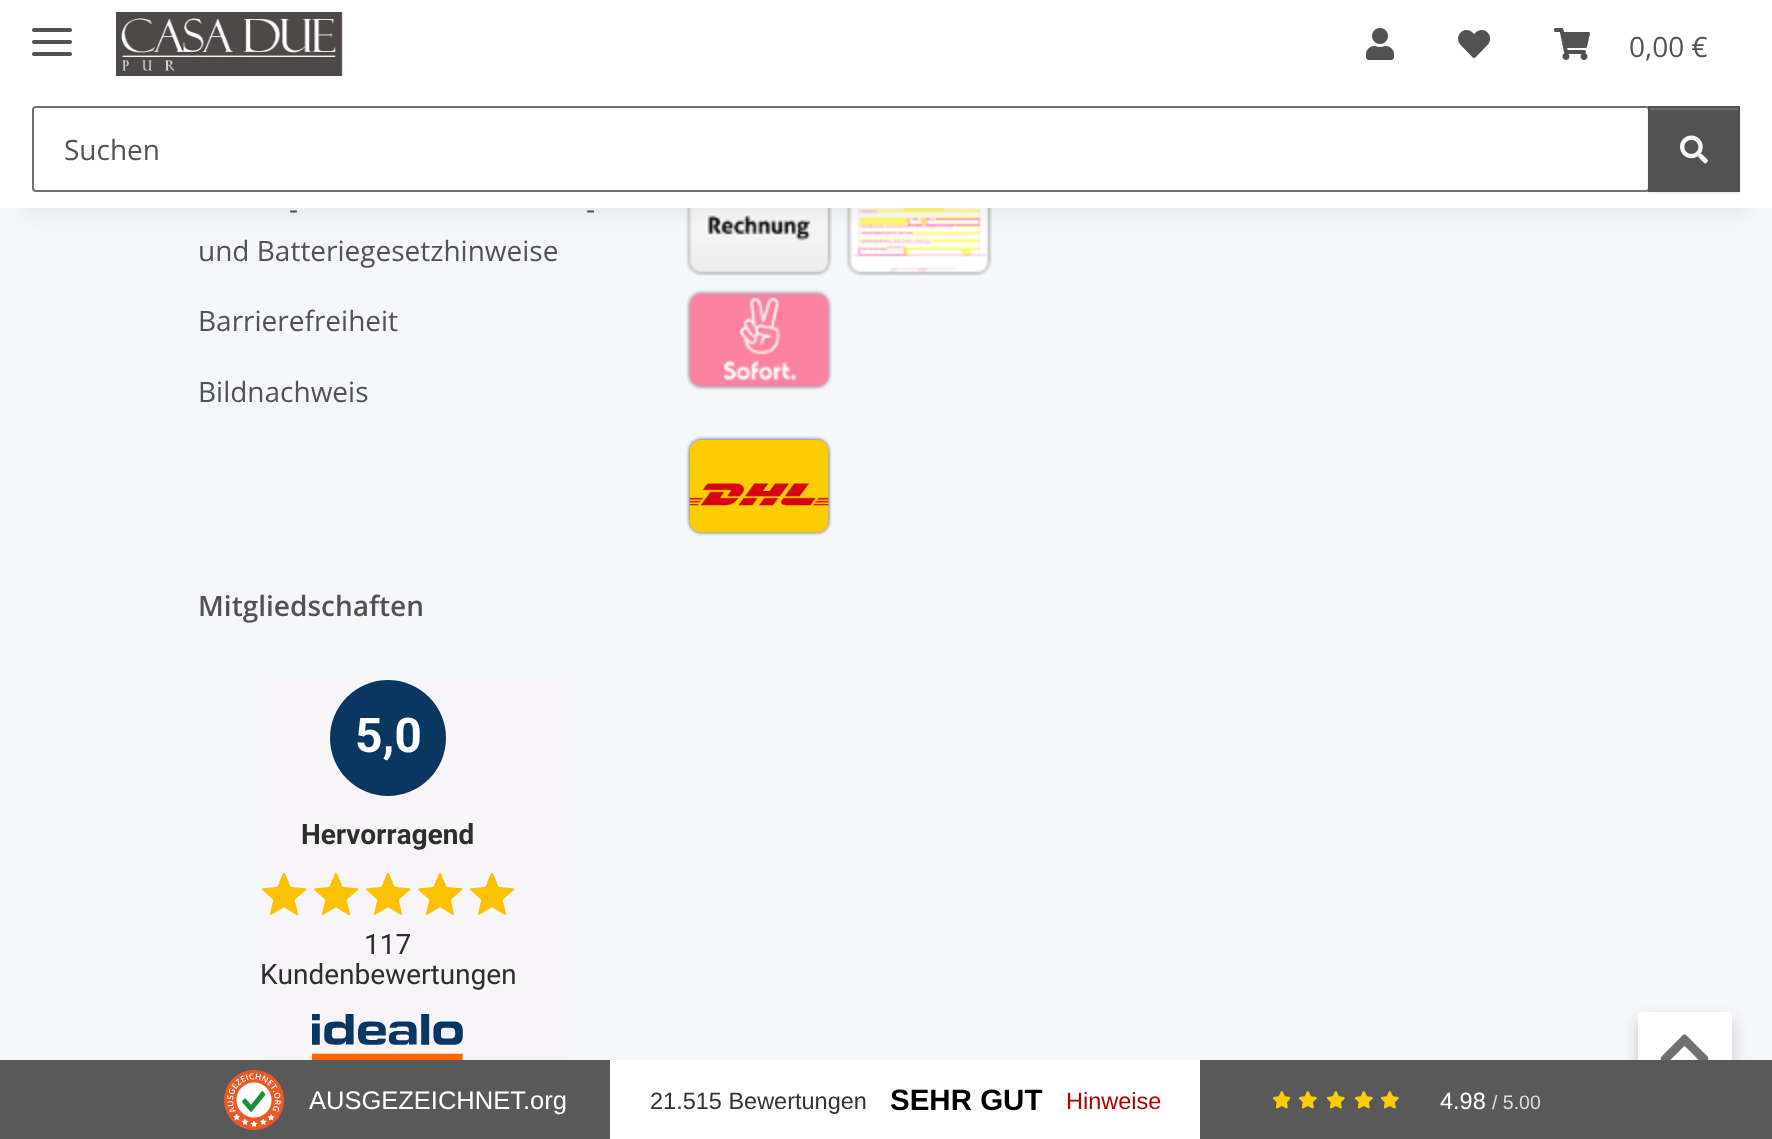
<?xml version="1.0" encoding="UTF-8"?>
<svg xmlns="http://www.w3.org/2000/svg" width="1772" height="1139">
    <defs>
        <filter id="blur1" x="-50%" y="-200%" width="200%" height="500%"><feGaussianBlur stdDeviation="9"/></filter>
        <filter id="blur2" x="-50%" y="-200%" width="200%" height="500%"><feGaussianBlur stdDeviation="1"/></filter>
        <filter id="blur3" x="-50%" y="-200%" width="200%" height="500%"><feGaussianBlur stdDeviation="8"/></filter>
    </defs>
    <rect width="100%" height="100%" fill="#F5F7FA"/>
    <image x="686" y="208" width="146" height="68" href="img_06.png"/>
    <image x="846" y="208" width="146" height="68" href="img_07.png"/>
    <rect x="24" y="56" width="1724" height="160" fill="#000000" fill-opacity="0.06" filter="url(#blur1)"/>
    <rect x="0" y="0" width="1772" height="208" fill="#FFFFFF"/>
    <rect x="32" y="40" width="40" height="4" rx="2" fill="#525252"/>
    <rect x="32" y="28" width="40" height="4" rx="2" fill="#525252"/>
    <rect x="32" y="52" width="40" height="4" rx="2" fill="#525252"/>
    <image x="116" y="12" width="227" height="64" href="img_01.png"/>
    <image x="1366" y="28" width="28" height="32" href="img_02.png"/>
    <image x="1458" y="30" width="33" height="28" href="img_03.png"/>
    <image x="1554" y="28" width="36" height="32" href="img_04.png"/>
    <text x="1629" y="57" font-family="Open Sans" font-size="28" fill="#525252">0,00 €</text>
    <rect x="33" y="107" width="1616" height="84" rx="3" fill="none" stroke="#707070" stroke-width="2"/>
    <text x="64" y="160" font-family="Open Sans" font-size="28" fill="#525252">Suchen</text>
    <rect x="1648" y="108" width="92" height="86" fill="#000000" fill-opacity="0.07" filter="url(#blur2)"/>
    <rect x="1648" y="106" width="92" height="86" fill="#525252"/>
    <rect x="1650" y="108" width="88" height="2" fill="#6C6C6C"/>
    <image x="1680" y="135" width="28" height="29" href="img_05.png"/>
    <text x="289" y="219" font-family="Open Sans" font-size="28" fill="#525252">-</text>
    <text x="586" y="219" font-family="Open Sans" font-size="28" fill="#525252">-</text>
    <text x="198" y="261" font-family="Open Sans" font-size="28" fill="#525252">und Batteriegesetzhinweise</text>
    <text x="198" y="331" font-family="Open Sans" font-size="28" fill="#525252">Barrierefreiheit</text>
    <text x="198" y="402" font-family="Open Sans" font-size="28" fill="#525252">Bildnachweis</text>
    <image x="686" y="290" width="146" height="100" href="img_08.png"/>
    <image x="686" y="436" width="146" height="100" href="img_09.png"/>
    <text x="198" y="616" font-family="Open Sans" font-size="28" font-weight="600" fill="#525252">Mitgliedschaften</text>
    <image x="262" y="680" width="302" height="380" href="img_10.png"/>
    <rect x="1638" y="1020" width="94" height="88" rx="4" fill="#000000" fill-opacity="0.2" filter="url(#blur3)"/>
    <rect x="1638" y="1012" width="94" height="88" rx="4" fill="#FFFFFF"/>
    <image x="1660" y="1034" width="49" height="26" href="img_11.png"/>
    <rect x="0" y="1060" width="1772" height="79" fill="#595959"/>
    <image x="224" y="1070" width="60" height="60" href="img_12.png"/>
    <text x="309" y="1109" font-family="Liberation Sans" font-size="25.5" fill="#FFFFFF">AUSGEZEICHNET</text>
    <text x="523" y="1109" font-family="Liberation Sans" font-size="25.5" fill="#FFFFFF">.org</text>
    <rect x="610" y="1060" width="590" height="79" fill="#FFFFFF"/>
    <text x="650" y="1109" font-family="Liberation Sans" font-size="23.5" fill="#333333">21.515 Bewertungen</text>
    <text x="890" y="1110" font-family="Liberation Sans" font-size="29.5" font-weight="700" fill="#000000">SEHR GUT</text>
    <text x="1066" y="1109" font-family="Liberation Sans" font-size="23.5" fill="#B00000">Hinweise</text>
    <image x="1272" y="1091" width="18" height="18" href="img_13.png"/>
    <image x="1298" y="1091" width="19" height="18" href="img_14.png"/>
    <image x="1326" y="1091" width="19" height="18" href="img_14.png"/>
    <image x="1354" y="1091" width="19" height="18" href="img_14.png"/>
    <image x="1380" y="1091" width="19" height="18" href="img_14.png"/>
    <text x="1440" y="1109" font-family="Liberation Sans" font-size="23.5" fill="#FFFFFF">4.98</text>
    <text x="1492" y="1109" font-family="Liberation Sans" font-size="19.5" fill="#DEDEDE">/ 5.00</text>
</svg>
